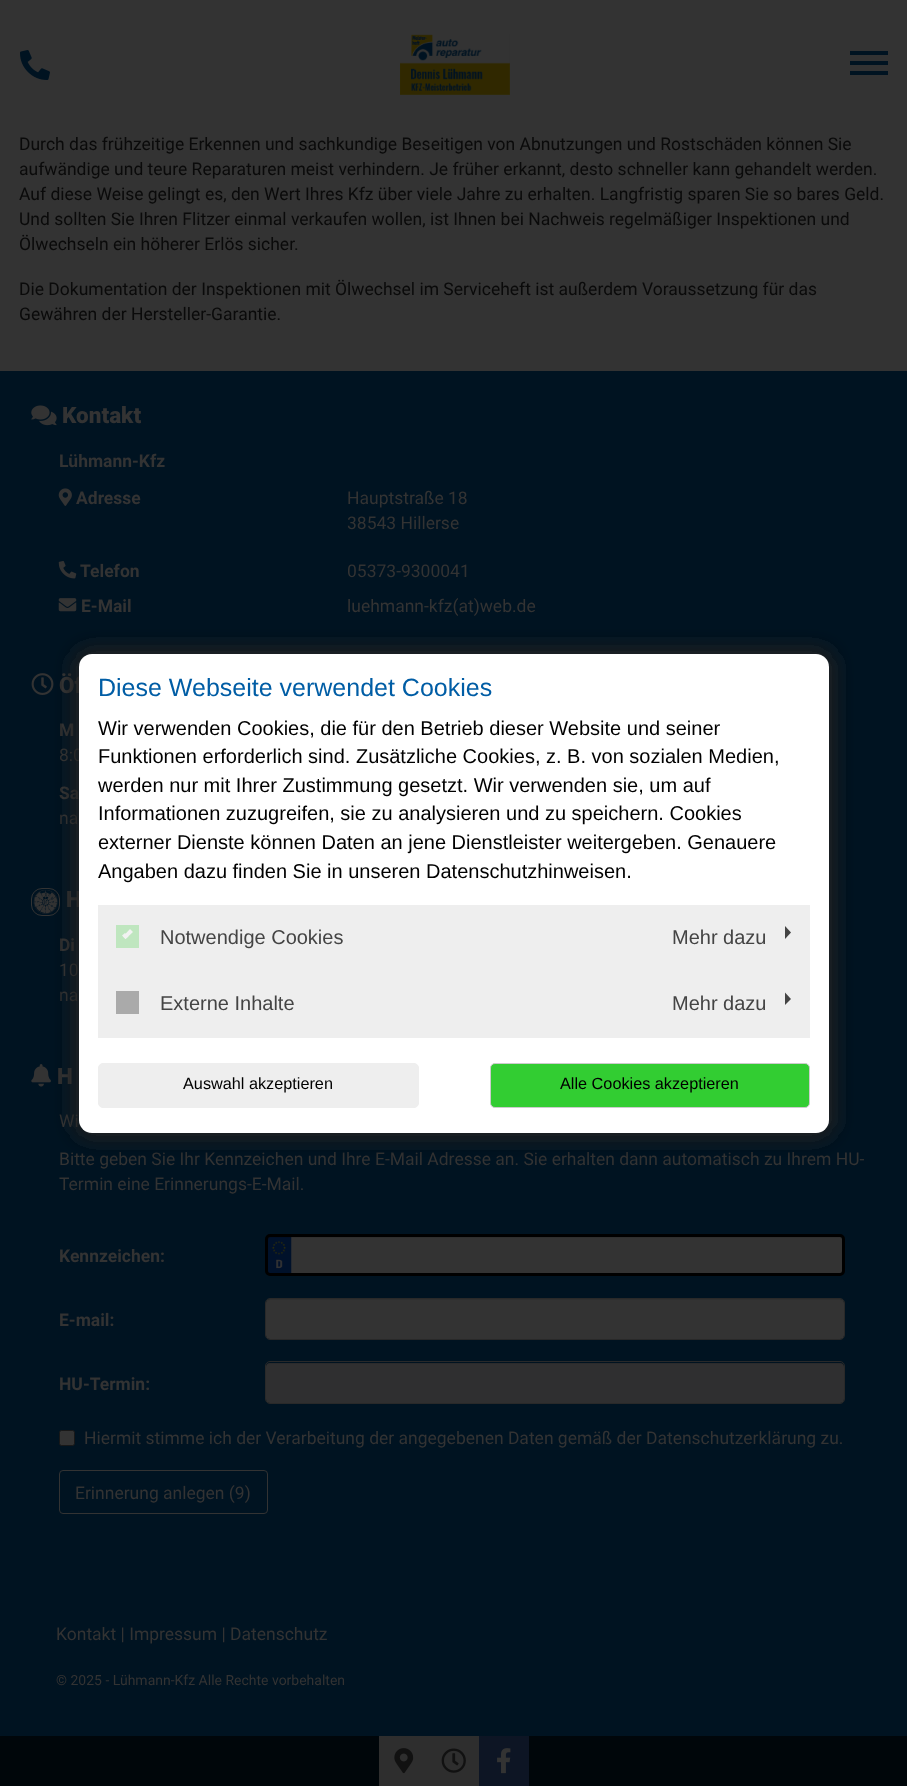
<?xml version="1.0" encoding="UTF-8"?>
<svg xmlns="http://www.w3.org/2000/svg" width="907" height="1786">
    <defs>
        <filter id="blur1" x="-50%" y="-200%" width="200%" height="500%"><feGaussianBlur stdDeviation="9.5"/></filter>
    </defs>
    <rect width="100%" height="100%" fill="#333333"/>
    <image x="20" y="50" width="30" height="30" href="img_01.png"/>
    <image x="400" y="34" width="110" height="61" href="img_02.png"/>
    <rect x="850" y="51" width="38" height="4" fill="#001321"/>
    <rect x="850" y="61" width="38" height="4" fill="#001321"/>
    <rect x="850" y="71" width="38" height="4" fill="#001321"/>
    <text font-family="Roboto" font-size="17.5" fill="#0A0A0A">
        <tspan x="19" y="150">Durch das frühzeitige Erkennen und sachkundige Beseitigen von Abnutzungen und Rostschäden können Sie</tspan>
        <tspan x="19" y="175">aufwändige und teure Reparaturen meist verhindern. Je früher erkannt, desto schneller kann gehandelt werden.</tspan>
        <tspan x="19" y="200">Auf diese Weise gelingt es, den Wert Ihres Kfz über viele Jahre zu erhalten. Langfristig sparen Sie so bares Geld.</tspan>
        <tspan x="19" y="225">Und sollten Sie Ihren Flitzer einmal verkaufen wollen, ist Ihnen bei Nachweis regelmäßiger Inspektionen und</tspan>
        <tspan x="19" y="250">Ölwechseln ein höherer Erlös sicher.</tspan>
    </text>
    <text font-family="Roboto" font-size="17.5" fill="#0A0A0A">
        <tspan x="19" y="295">Die Dokumentation der Inspektionen mit Ölwechsel im Serviceheft ist außerdem Voraussetzung für das</tspan>
        <tspan x="19" y="320">Gewähren der Hersteller-Garantie.</tspan>
    </text>
    <rect x="0" y="371" width="907" height="1365" fill="#001321"/>
    <image x="31" y="405" width="26" height="21" href="img_03.png"/>
    <text x="62" y="423" font-family="Roboto" font-size="22.5" font-weight="900" fill="#333333">Kontakt</text>
    <text x="59" y="467" font-family="Roboto" font-size="17.5" font-weight="700" fill="#333333">Lühmann-Kfz</text>
    <image x="58" y="488" width="14" height="18" href="img_04.png"/>
    <text x="76" y="504" font-family="Roboto" font-size="17.5" font-weight="700" fill="#333333">Adresse</text>
    <text font-family="Roboto" font-size="17.5" fill="#333333">
        <tspan x="347" y="504">Hauptstraße 18</tspan>
        <tspan x="347" y="529">38543 Hillerse</tspan>
    </text>
    <image x="58" y="561" width="19" height="18" href="img_05.png"/>
    <text x="80" y="577" font-family="Roboto" font-size="17.5" font-weight="700" fill="#333333">Telefon</text>
    <text x="347" y="577" font-family="Roboto" font-size="17.5" fill="#333333">05373-9300041</text>
    <image x="58" y="598" width="19" height="14" href="img_06.png"/>
    <text x="81" y="612" font-family="Roboto" font-size="17.5" font-weight="700" fill="#333333">E-Mail</text>
    <text x="347" y="612" font-family="Roboto" font-size="17.5" fill="#333333">luehmann-kfz(at)web.de</text>
    <image x="31" y="673" width="23" height="22" href="img_07.png"/>
    <text x="59" y="693" font-family="Roboto" font-size="22.5" font-weight="900" fill="#333333">Öf</text>
    <text x="59" y="736" font-family="Roboto" font-size="17.5" font-weight="700" fill="#333333">M</text>
    <text x="59" y="761" font-family="Roboto" font-size="17.5" fill="#333333">8:0</text>
    <text x="59" y="799" font-family="Roboto" font-size="17.5" font-weight="700" fill="#333333">Sa</text>
    <text x="59" y="824" font-family="Roboto" font-size="17.5" fill="#333333">na</text>
    <rect x="31.5" y="888.5" width="28" height="27" rx="10.5" fill="none" stroke="#333333"/>
    <image x="33" y="890" width="25" height="24" href="img_08.png"/>
    <text x="66" y="907" font-family="Roboto" font-size="22.5" font-weight="900" fill="#333333">H</text>
    <text x="59" y="951" font-family="Roboto" font-size="17.5" font-weight="700" fill="#333333">Di</text>
    <text font-family="Roboto" font-size="17.5" fill="#333333">
        <tspan x="59" y="976">10</tspan>
        <tspan x="59" y="1001">na</tspan>
    </text>
    <image x="31" y="1064" width="20" height="23" href="img_09.png"/>
    <text x="57" y="1084" font-family="Roboto" font-size="22.5" font-weight="900" fill="#333333">H</text>
    <text x="59" y="1127" font-family="Roboto" font-size="17.5" fill="#333333">Wi</text>
    <text font-family="Roboto" font-size="17.5" fill="#333333">
        <tspan x="59" y="1165">Bitte geben Sie Ihr Kennzeichen und Ihre E-Mail Adresse an. Sie erhalten dann automatisch zu Ihrem HU-</tspan>
        <tspan x="59" y="1190">Termin eine Erinnerungs-E-Mail.</tspan>
    </text>
    <text x="59" y="1262" font-family="Roboto" font-size="17.5" font-weight="700" fill="#333333">Kennzeichen:</text>
    <rect x="268" y="1236" width="575" height="38" rx="2.5" fill="#333333"/>
    <image x="268" y="1237" width="24" height="36" href="img_10.png"/>
    <path d="M 270 1238 H 840 C 841 1238 842 1239 842 1240 V 1274 C 842 1273 843 1272 843 1272 V 1238 C 843 1237 842 1236 840 1236 H 270 C 269 1236 268 1237 268 1238 V 1240 C 268 1239 269 1238 270 1238 Z" fill="#000000" fill-opacity="0.07"/>
    <rect x="266.5" y="1235.5" width="577" height="39" rx="3.5" fill="none" stroke="#000000" stroke-width="3"/>
    <text x="59" y="1326" font-family="Roboto" font-size="17.5" font-weight="700" fill="#333333">E-mail:</text>
    <rect x="266" y="1299" width="578" height="40" rx="4" fill="#333333"/>
    <path d="M 270 1300 H 840 C 842 1300 844 1302 844 1304 V 1303 C 844 1301 842 1299 840 1299 H 270 C 268 1299 266 1301 266 1303 V 1304 C 266 1302 268 1300 270 1300 Z" fill="#000000" fill-opacity="0.07"/>
    <rect x="265.5" y="1298.5" width="579" height="41" rx="4.5" fill="none" stroke="#292929"/>
    <text x="59" y="1390" font-family="Roboto" font-size="17.5" font-weight="700" fill="#333333">HU-Termin:</text>
    <rect x="266" y="1363" width="578" height="40" rx="4" fill="#2F2F30"/>
    <path d="M 270 1364 H 840 C 842 1364 844 1365 844 1368 V 1367 C 844 1365 842 1363 840 1363 H 270 C 268 1363 266 1365 266 1367 V 1368 C 266 1365 268 1364 270 1364 Z" fill="#000000" fill-opacity="0.07"/>
    <rect x="265.5" y="1361.5" width="579" height="42" rx="4.5" fill="none" stroke="#292929"/>
    <rect x="59.5" y="1430.5" width="15" height="15" rx="2" fill="#333333" stroke="#181818"/>
    <text x="84" y="1444" font-family="Roboto" font-size="17.5" fill="#333333">Hiermit stimme ich der Verarbeitung der angegebenen Daten gemäß der Datenschutzerklärung zu.</text>
    <rect x="59.5" y="1470.5" width="208" height="43" rx="3.5" fill="none" stroke="#333333"/>
    <text x="75" y="1499" font-family="Roboto" font-size="17.5" fill="#333333">Erinnerung anlegen (9)</text>
    <text x="56" y="1640" font-family="Roboto" font-size="17.5" fill="#333333">Kontakt | Impressum | Datenschutz</text>
    <text x="56" y="1685" font-family="Roboto" font-size="14" fill="#333333">© 2025 - Lühmann-Kfz Alle Rechte vorbehalten</text>
    <rect x="0" y="1736" width="907" height="50" fill="#00060A"/>
    <rect x="379" y="1736" width="100" height="50" fill="#2E2E2E"/>
    <image x="394" y="1748" width="20" height="26" href="img_11.png"/>
    <rect x="479" y="1736" width="50" height="50" fill="#0D1524"/>
    <image x="497" y="1748" width="14" height="26" href="img_12.png"/>
    <image x="441" y="1748" width="25" height="25" href="img_13.png"/>
    <rect x="73" y="648" width="762" height="491" rx="19" fill="#222222" filter="url(#blur1)"/>
    <rect x="79" y="654" width="750" height="479" rx="13" fill="#FFFFFF"/>
    <text x="98" y="696" font-family="Liberation Sans" font-size="25" fill="#005DA5">Diese Webseite verwendet Cookies</text>
    <text font-family="Liberation Sans" font-size="20" fill="#000000">
        <tspan x="98" y="735">Wir verwenden Cookies, die für den Betrieb dieser Website und seiner</tspan>
        <tspan x="98" y="763">Funktionen erforderlich sind. Zusätzliche Cookies, z. B. von sozialen Medien,</tspan>
        <tspan x="98" y="792">werden nur mit Ihrer Zustimmung gesetzt. Wir verwenden sie, um auf</tspan>
        <tspan x="98" y="820">Informationen zuzugreifen, sie zu analysieren und zu speichern. Cookies</tspan>
        <tspan x="98" y="849">externer Dienste können Daten an jene Dienstleister weitergeben. Genauere</tspan>
        <tspan x="98" y="878">Angaben dazu finden Sie in unseren Datenschutzhinweisen.</tspan>
    </text>
    <rect x="98" y="905" width="712" height="133" fill="#EEEEEE"/>
    <rect x="116" y="925" width="23" height="23" fill="#BFE6BF"/>
    <path d="M 130 929 L 133 932 L 125.5 939 L 123 936.5 Z" fill="#F2F2F2"/>
    <path d="M 125 933 L 128.5 936.5 L 125.5 939 L 122 935.5 Z" fill="#F2F2F2"/>
    <text x="160" y="944" font-family="Liberation Sans" font-size="20" fill="#444444">Notwendige Cookies</text>
    <text x="672" y="944" font-family="Liberation Sans" font-size="20" fill="#444444">Mehr dazu</text>
    <path d="M 785 939 V 926 L 791 932.5 Z" fill="#444444"/>
    <rect x="116" y="991" width="23" height="23" fill="#AAAAAA"/>
    <text x="160" y="1010" font-family="Liberation Sans" font-size="20" fill="#444444">Externe Inhalte</text>
    <text x="672" y="1010" font-family="Liberation Sans" font-size="20" fill="#444444">Mehr dazu</text>
    <path d="M 785 1005 V 992.5 L 791 999 Z" fill="#444444"/>
    <rect x="98.5" y="1063.5" width="320" height="44" rx="4.5" fill="#EEEEEE" stroke="#EEEEEE"/>
    <text x="183" y="1089" font-family="Liberation Sans" font-size="16.25" fill="#000000">Auswahl akzeptieren</text>
    <rect x="490.5" y="1063.5" width="319" height="44" rx="4.5" fill="#32CD32" stroke="#CCCCCC"/>
    <text x="560" y="1089" font-family="Liberation Sans" font-size="16.25" fill="#000000">Alle Cookies akzeptieren</text>
</svg>
